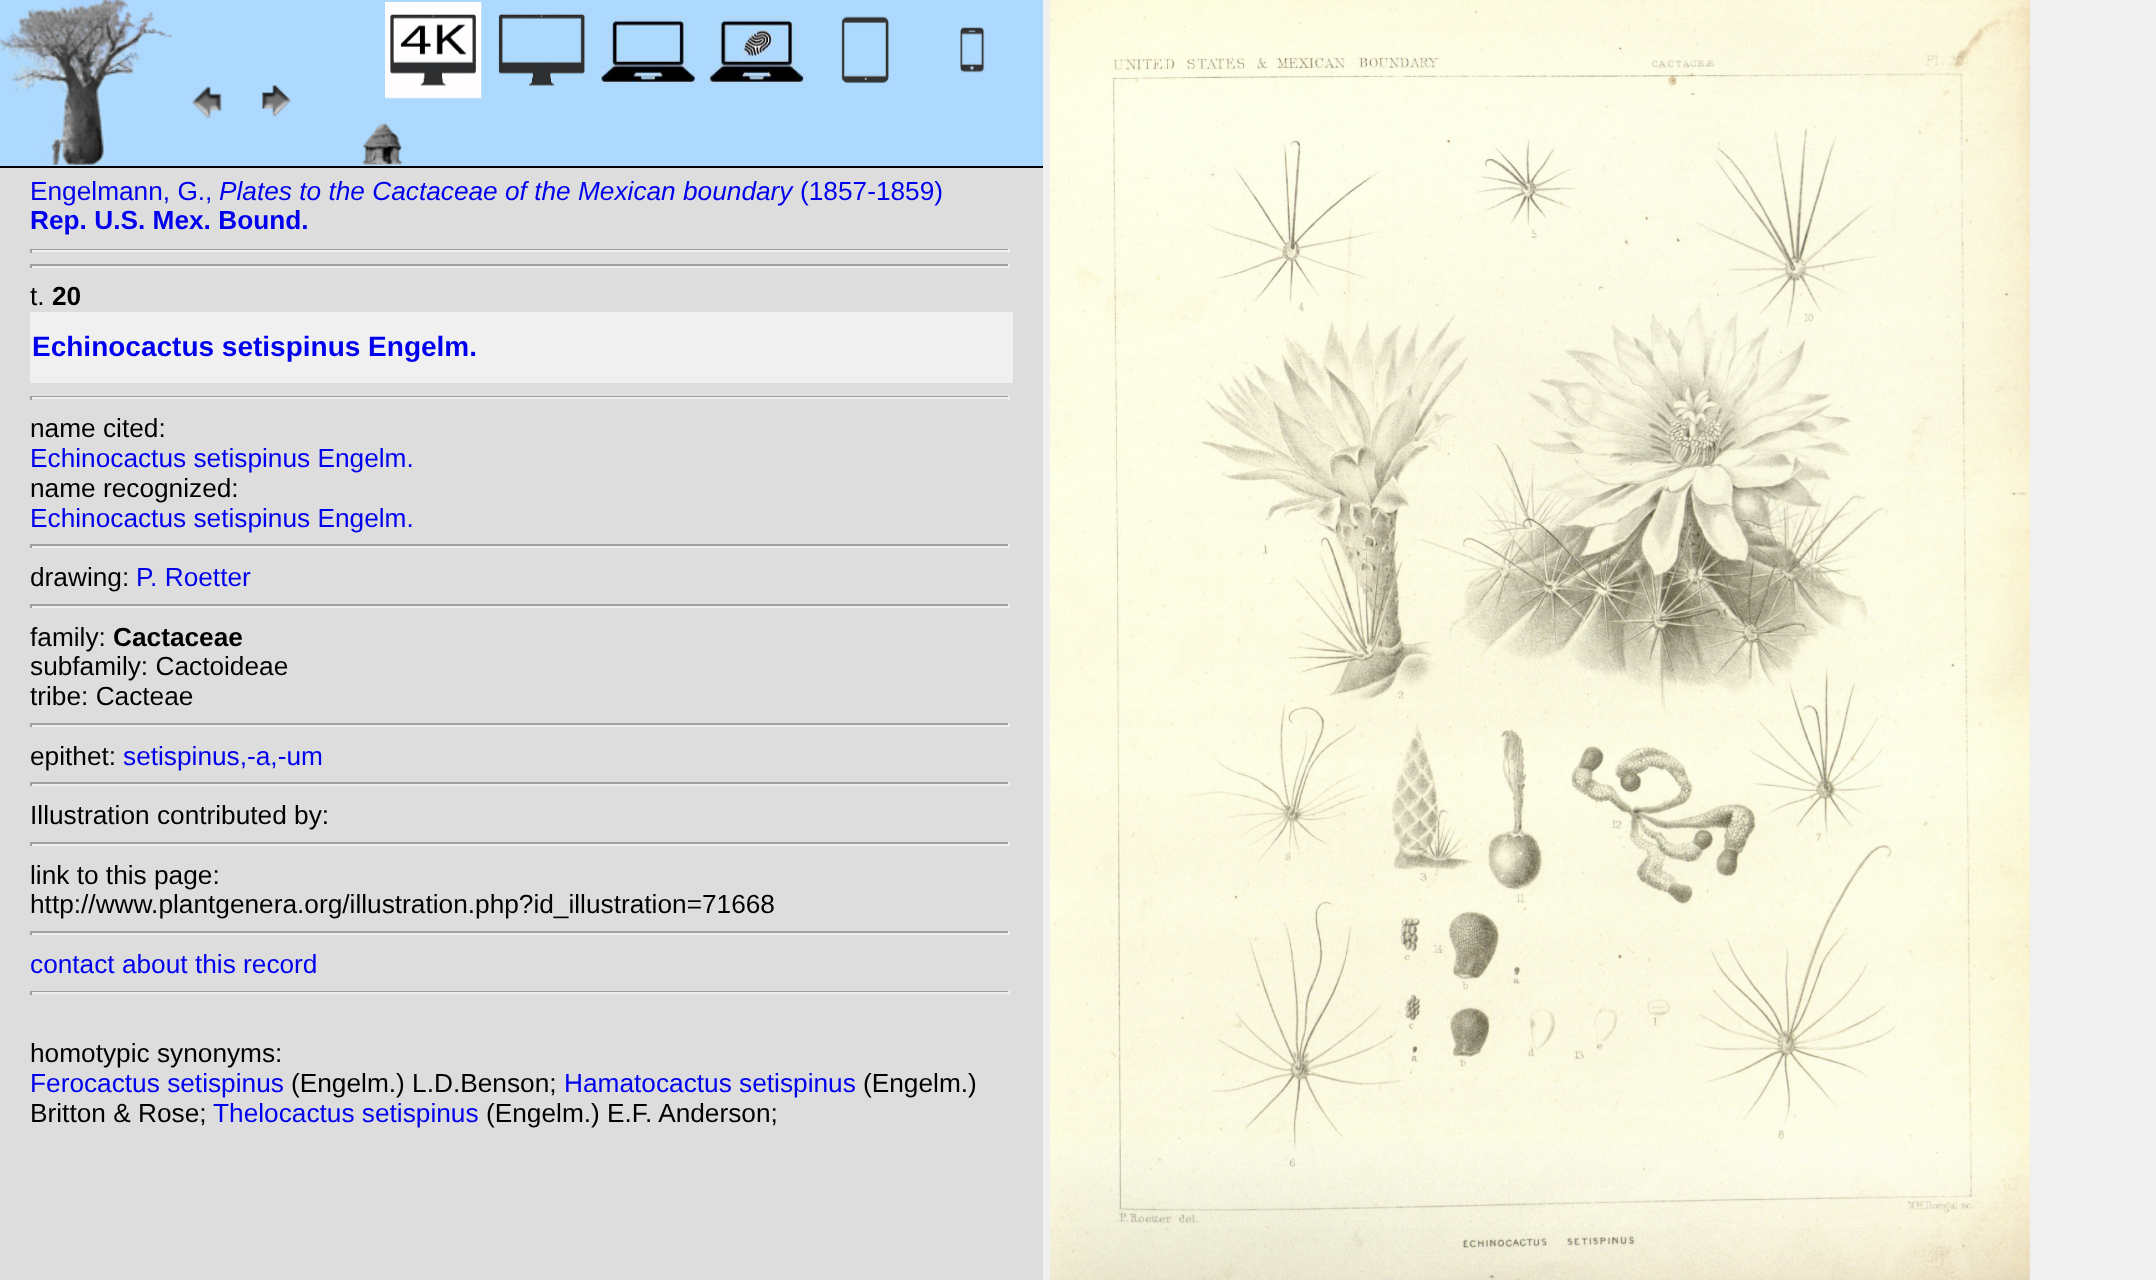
<?xml version="1.0" encoding="UTF-8"?>
<svg xmlns="http://www.w3.org/2000/svg" width="2156" height="1280">
    <rect width="100%" height="100%" fill="#F0F0F0"/>
    <rect x="0" y="168" width="1043" height="1112" fill="#DDDDDD"/>
    <rect x="0" y="0" width="1043" height="166" fill="#ADD9FE"/>
    <rect x="0" y="166" width="1043" height="2" fill="#000000"/>
    <image x="0" y="0" width="175" height="165" href="img_01.png"/>
    <image x="191" y="86" width="31" height="33" href="img_02.png"/>
    <image x="262" y="85" width="29" height="31" href="img_03.png"/>
    <image x="385" y="2" width="97" height="97" href="img_04.png"/>
    <image x="498" y="13" width="87" height="74" href="img_05.png"/>
    <image x="600" y="16" width="97" height="67" href="img_06.png"/>
    <image x="708" y="16" width="97" height="67" href="img_07.png"/>
    <image x="841" y="16" width="48" height="68" href="img_08.png"/>
    <image x="958" y="27" width="27" height="46" href="img_09.png"/>
    <image x="362" y="123" width="41" height="42" href="img_10.png"/>
    <text x="30" y="200" font-family="Liberation Sans" font-size="26.25" fill="#0000EE">Engelmann, G.,</text>
    <text x="219" y="200" font-family="Liberation Sans" font-size="26.25" font-style="italic" fill="#0000EE">Plates to the Cactaceae of the Mexican boundary</text>
    <text x="800" y="200" font-family="Liberation Sans" font-size="26.25" fill="#0000EE">(1857-1859)</text>
    <text x="30" y="229" font-family="Liberation Sans" font-size="26.25" font-weight="700" fill="#0000EE">Rep. U.S. Mex. Bound.</text>
    <rect x="30" y="249" width="980" height="1" fill="#9F9F9F"/>
    <rect x="1008" y="249" width="2" height="4" fill="#EEEEEE"/>
    <rect x="30" y="250" width="980" height="2" fill="#EEEEEE"/>
    <rect x="30" y="249" width="2" height="4" fill="#9F9F9F"/>
    <rect x="30" y="264" width="980" height="2" fill="#9F9F9F"/>
    <rect x="1008" y="264" width="2" height="4" fill="#EEEEEE"/>
    <rect x="30" y="266" width="980" height="2" fill="#EEEEEE"/>
    <rect x="30" y="264" width="2" height="4" fill="#9F9F9F"/>
    <text x="30" y="305" font-family="Liberation Sans" font-size="26.25" fill="#000000">t.</text>
    <text x="52" y="305" font-family="Liberation Sans" font-size="26.25" font-weight="700" fill="#000000">20</text>
    <rect x="30" y="312" width="983" height="71" fill="#F0F0F0"/>
    <text x="32" y="356" font-family="Liberation Sans" font-size="28" font-weight="700" fill="#0000EE">Echinocactus setispinus Engelm.</text>
    <rect x="30" y="396" width="980" height="1" fill="#9F9F9F"/>
    <rect x="1008" y="396" width="2" height="4" fill="#EEEEEE"/>
    <rect x="30" y="397" width="980" height="2" fill="#EEEEEE"/>
    <rect x="30" y="396" width="2" height="4" fill="#9F9F9F"/>
    <text x="30" y="437" font-family="Liberation Sans" font-size="26.25" fill="#000000">name cited:</text>
    <text x="30" y="467" font-family="Liberation Sans" font-size="26.25" fill="#0000EE">Echinocactus setispinus Engelm.</text>
    <text x="30" y="497" font-family="Liberation Sans" font-size="26.25" fill="#000000">name recognized:</text>
    <text x="30" y="527" font-family="Liberation Sans" font-size="26.25" fill="#0000EE">Echinocactus setispinus Engelm.</text>
    <rect x="30" y="544" width="980" height="2" fill="#9F9F9F"/>
    <rect x="1008" y="544" width="2" height="4" fill="#EEEEEE"/>
    <rect x="30" y="546" width="980" height="2" fill="#EEEEEE"/>
    <rect x="30" y="544" width="2" height="4" fill="#9F9F9F"/>
    <text x="30" y="586" font-family="Liberation Sans" font-size="26.25" fill="#000000">drawing:</text>
    <text x="136" y="586" font-family="Liberation Sans" font-size="26.25" fill="#0000EE">P. Roetter</text>
    <rect x="30" y="604" width="980" height="2" fill="#9F9F9F"/>
    <rect x="1008" y="604" width="2" height="4" fill="#EEEEEE"/>
    <rect x="30" y="606" width="980" height="2" fill="#EEEEEE"/>
    <rect x="30" y="604" width="2" height="4" fill="#9F9F9F"/>
    <text x="30" y="646" font-family="Liberation Sans" font-size="26.25" fill="#000000">family:</text>
    <text x="113" y="646" font-family="Liberation Sans" font-size="26.25" font-weight="700" fill="#000000">Cactaceae</text>
    <text font-family="Liberation Sans" font-size="26.25" fill="#000000">
        <tspan x="30" y="675">subfamily: Cactoideae</tspan>
        <tspan x="30" y="705">tribe: Cacteae</tspan>
    </text>
    <rect x="30" y="723" width="980" height="2" fill="#9F9F9F"/>
    <rect x="1008" y="723" width="2" height="4" fill="#EEEEEE"/>
    <rect x="30" y="725" width="980" height="2" fill="#EEEEEE"/>
    <rect x="30" y="723" width="2" height="4" fill="#9F9F9F"/>
    <text x="30" y="765" font-family="Liberation Sans" font-size="26.25" fill="#000000">epithet:</text>
    <text x="123" y="765" font-family="Liberation Sans" font-size="26.25" fill="#0000EE">setispinus,-a,-um</text>
    <rect x="30" y="782" width="980" height="2" fill="#9F9F9F"/>
    <rect x="1008" y="782" width="2" height="4" fill="#EEEEEE"/>
    <rect x="30" y="784" width="980" height="2" fill="#EEEEEE"/>
    <rect x="30" y="782" width="2" height="4" fill="#9F9F9F"/>
    <text x="30" y="824" font-family="Liberation Sans" font-size="26.25" fill="#000000">Illustration contributed by:</text>
    <rect x="30" y="842" width="980" height="2" fill="#9F9F9F"/>
    <rect x="1008" y="842" width="2" height="4" fill="#EEEEEE"/>
    <rect x="30" y="844" width="980" height="2" fill="#EEEEEE"/>
    <rect x="30" y="842" width="2" height="4" fill="#9F9F9F"/>
    <text font-family="Liberation Sans" font-size="26.25" fill="#000000">
        <tspan x="30" y="884">link to this page:</tspan>
        <tspan x="30" y="913">http://www.plantgenera.org/illustration.php?id_illustration=71668</tspan>
    </text>
    <rect x="30" y="931" width="980" height="2" fill="#9F9F9F"/>
    <rect x="1008" y="931" width="2" height="4" fill="#EEEEEE"/>
    <rect x="30" y="933" width="980" height="2" fill="#EEEEEE"/>
    <rect x="30" y="931" width="2" height="4" fill="#9F9F9F"/>
    <text x="30" y="973" font-family="Liberation Sans" font-size="26.25" fill="#0000EE">contact about this record</text>
    <rect x="30" y="991" width="980" height="1" fill="#9F9F9F"/>
    <rect x="1008" y="991" width="2" height="4" fill="#EEEEEE"/>
    <rect x="30" y="992" width="980" height="2" fill="#EEEEEE"/>
    <rect x="30" y="991" width="2" height="4" fill="#9F9F9F"/>
    <text x="30" y="1062" font-family="Liberation Sans" font-size="26.25" fill="#000000">homotypic synonyms:</text>
    <text x="30" y="1092" font-family="Liberation Sans" font-size="26.25" fill="#0000EE">Ferocactus setispinus</text>
    <text x="291" y="1092" font-family="Liberation Sans" font-size="26.25" fill="#000000">(Engelm.) L.D.Benson;</text>
    <text x="564" y="1092" font-family="Liberation Sans" font-size="26.25" fill="#0000EE">Hamatocactus setispinus</text>
    <text x="863" y="1092" font-family="Liberation Sans" font-size="26.25" fill="#000000">(Engelm.)</text>
    <text x="30" y="1122" font-family="Liberation Sans" font-size="26.25" fill="#000000">Britton &amp; Rose;</text>
    <text x="213" y="1122" font-family="Liberation Sans" font-size="26.25" fill="#0000EE">Thelocactus setispinus</text>
    <text x="486" y="1122" font-family="Liberation Sans" font-size="26.25" fill="#000000">(Engelm.) E.F. Anderson;</text>
    <image x="1050" y="0" width="980" height="1280" href="img_11.png"/>
</svg>
